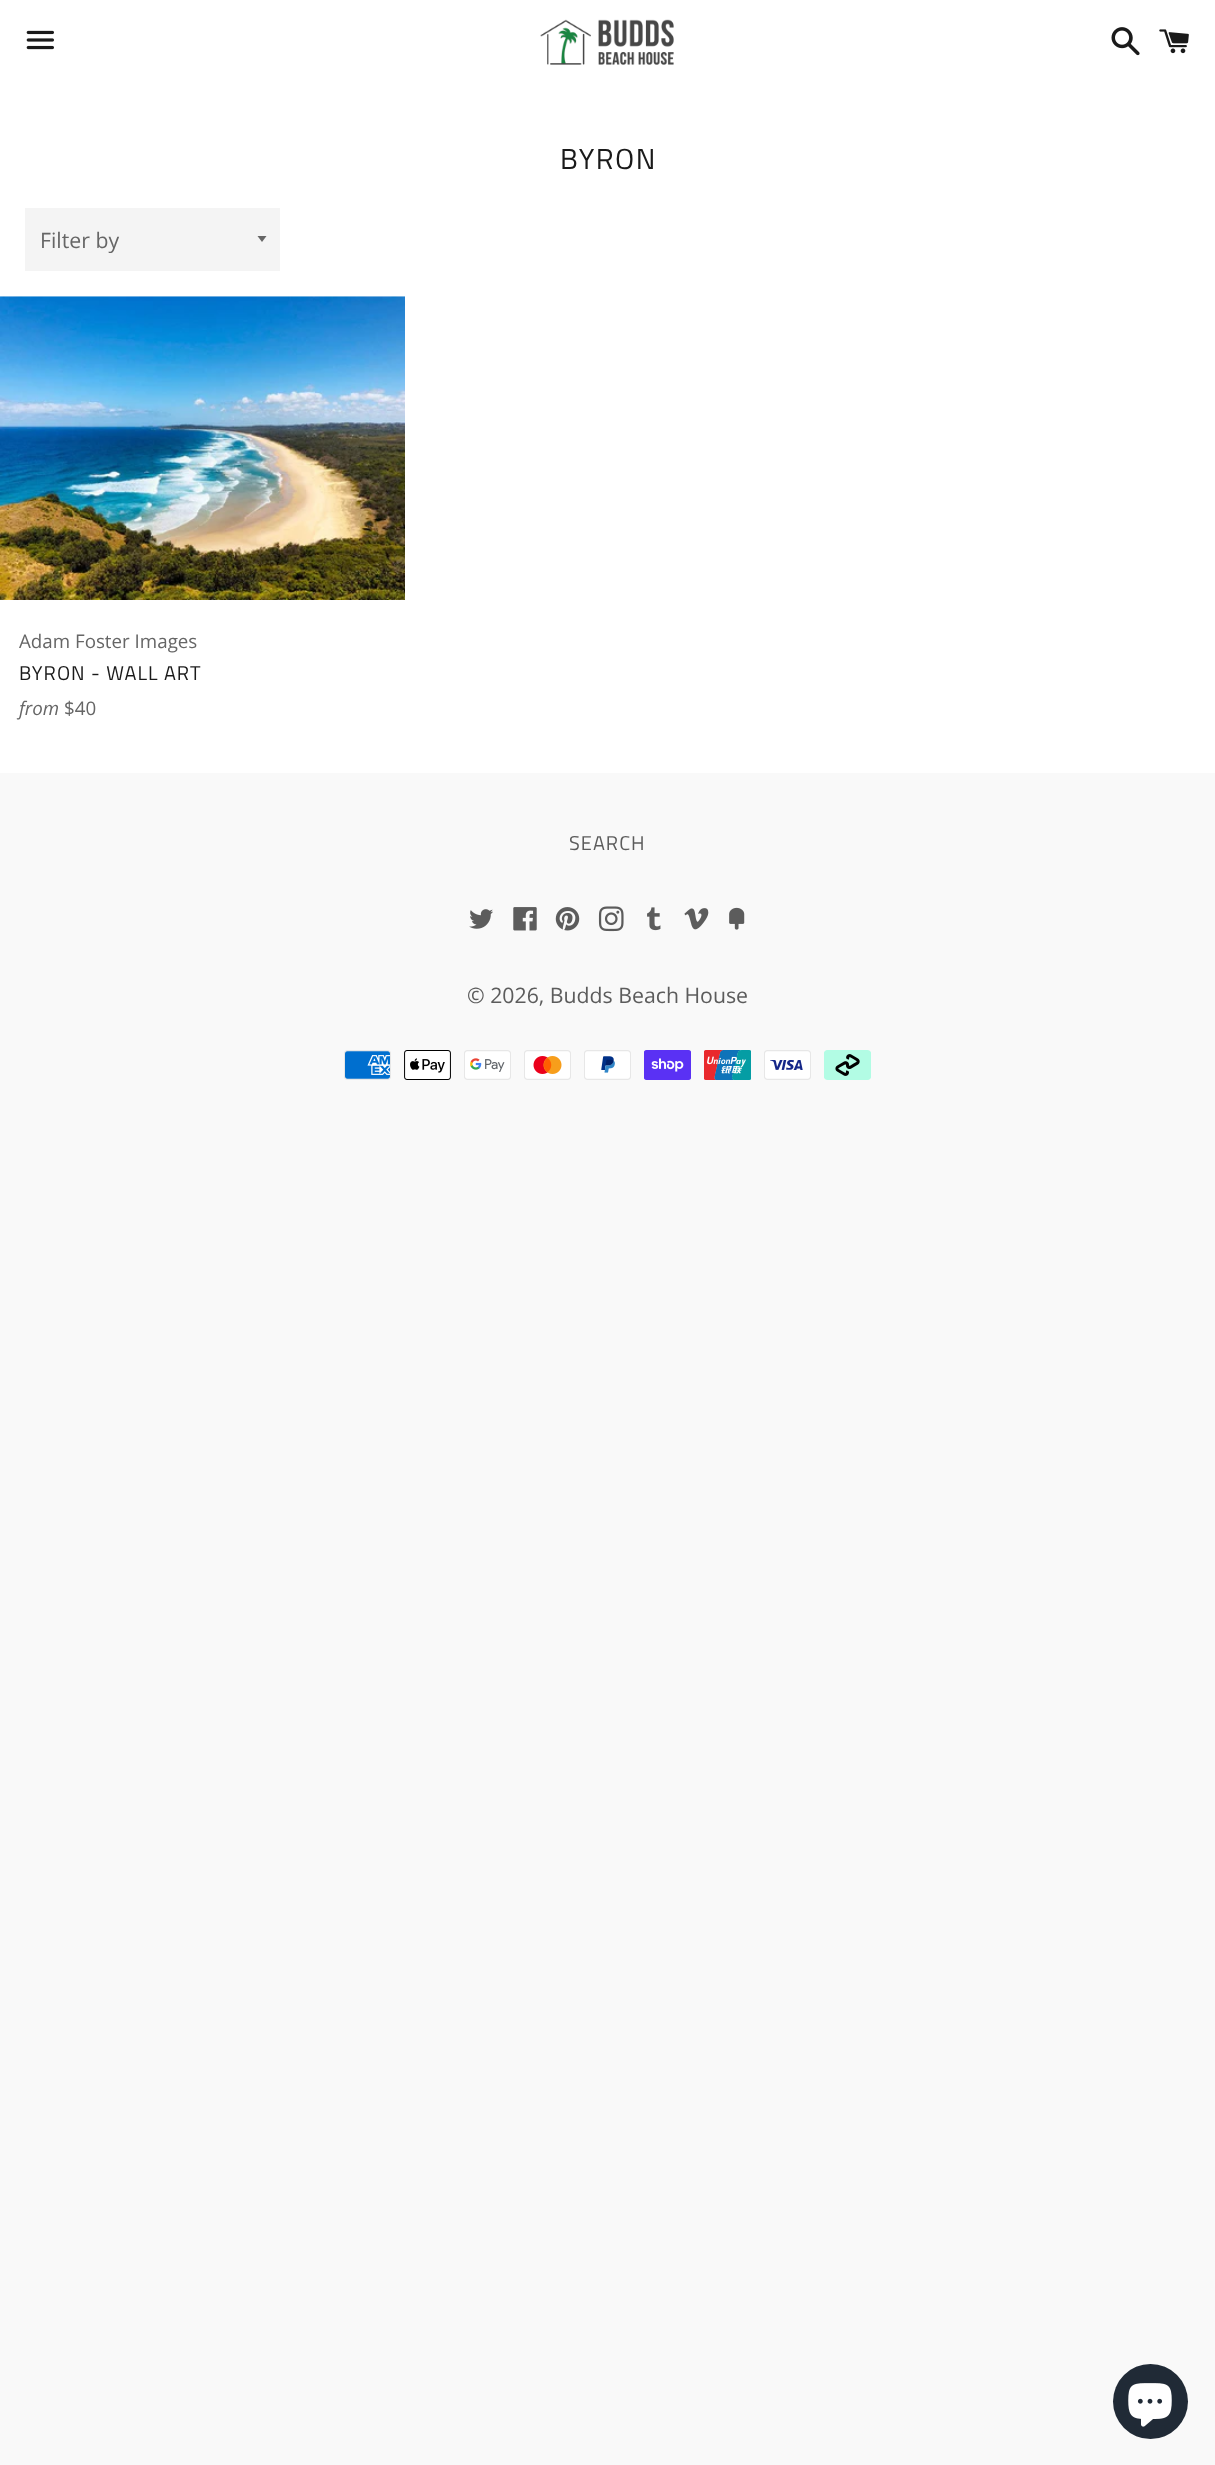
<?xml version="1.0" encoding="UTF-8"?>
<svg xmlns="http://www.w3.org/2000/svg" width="1215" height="2465">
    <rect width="100%" height="100%" fill="#F9F9F9"/>
    <rect x="0" y="0" width="1215" height="773" fill="#FFFFFF"/>
    <image x="26" y="30" width="28" height="20" href="img_01.png"/>
    <image x="540" y="19" width="134" height="46" href="img_02.png"/>
    <image x="1111" y="27" width="29" height="29" href="img_03.png"/>
    <image x="1159" y="29" width="30" height="25" href="img_04.png"/>
    <text x="560" y="169" font-family="Titillium Web" font-size="29" letter-spacing="1.5" fill="#1A1A1A">BYRON</text>
    <rect x="25" y="208" width="255" height="63" fill="#F4F4F4"/>
    <path d="M 257.5 236 L 262 242 L 266.5 236 Z" fill="#666666"/>
    <text x="40" y="248" font-family="Open Sans" font-size="21.25" fill="#666666">Filter by</text>
    <image x="0" y="296" width="405" height="304" href="img_05.png"/>
    <text x="19" y="648" font-family="Open Sans" font-size="18.75" fill="#666666">Adam Foster Images</text>
    <text x="19" y="680" font-family="Titillium Web" font-size="20" letter-spacing="1" fill="#1A1A1A">BYRON - WALL ART</text>
    <text x="19" y="715" font-family="Open Sans" font-size="18.75" font-style="italic" fill="#666666">from</text>
    <text x="64" y="715" font-family="Open Sans" font-size="18.75" fill="#666666">$40</text>
    <text x="569" y="850" font-family="Titillium Web" font-size="20" letter-spacing="1" fill="#5C5C5C">SEARCH</text>
    <image x="469" y="909" width="24" height="20" href="img_06.png"/>
    <image x="513" y="907" width="24" height="24" href="img_07.png"/>
    <image x="555" y="907" width="25" height="24" href="img_08.png"/>
    <image x="598" y="906" width="26" height="26" href="img_09.png"/>
    <image x="647" y="907" width="14" height="24" href="img_10.png"/>
    <image x="684" y="908" width="25" height="22" href="img_11.png"/>
    <image x="729" y="907" width="16" height="23" href="img_12.png"/>
    <text x="467" y="1003" font-family="Open Sans" font-size="21.25" fill="#5C5C5C">© 2026, Budds Beach House</text>
    <image x="344" y="1050" width="47" height="30" href="img_13.png"/>
    <image x="404" y="1050" width="47" height="30" href="img_14.png"/>
    <image x="464" y="1050" width="47" height="30" href="img_15.png"/>
    <image x="524" y="1050" width="47" height="30" href="img_16.png"/>
    <image x="584" y="1050" width="47" height="30" href="img_17.png"/>
    <image x="644" y="1050" width="47" height="30" href="img_18.png"/>
    <image x="704" y="1050" width="47" height="30" href="img_19.png"/>
    <image x="764" y="1050" width="47" height="30" href="img_20.png"/>
    <image x="824" y="1050" width="47" height="30" href="img_21.png"/>
    <circle cx="1150.5" cy="2401.5" r="37.5" fill="#202A36"/>
    <image x="1128" y="2383" width="44" height="44" href="img_22.png"/>
</svg>
